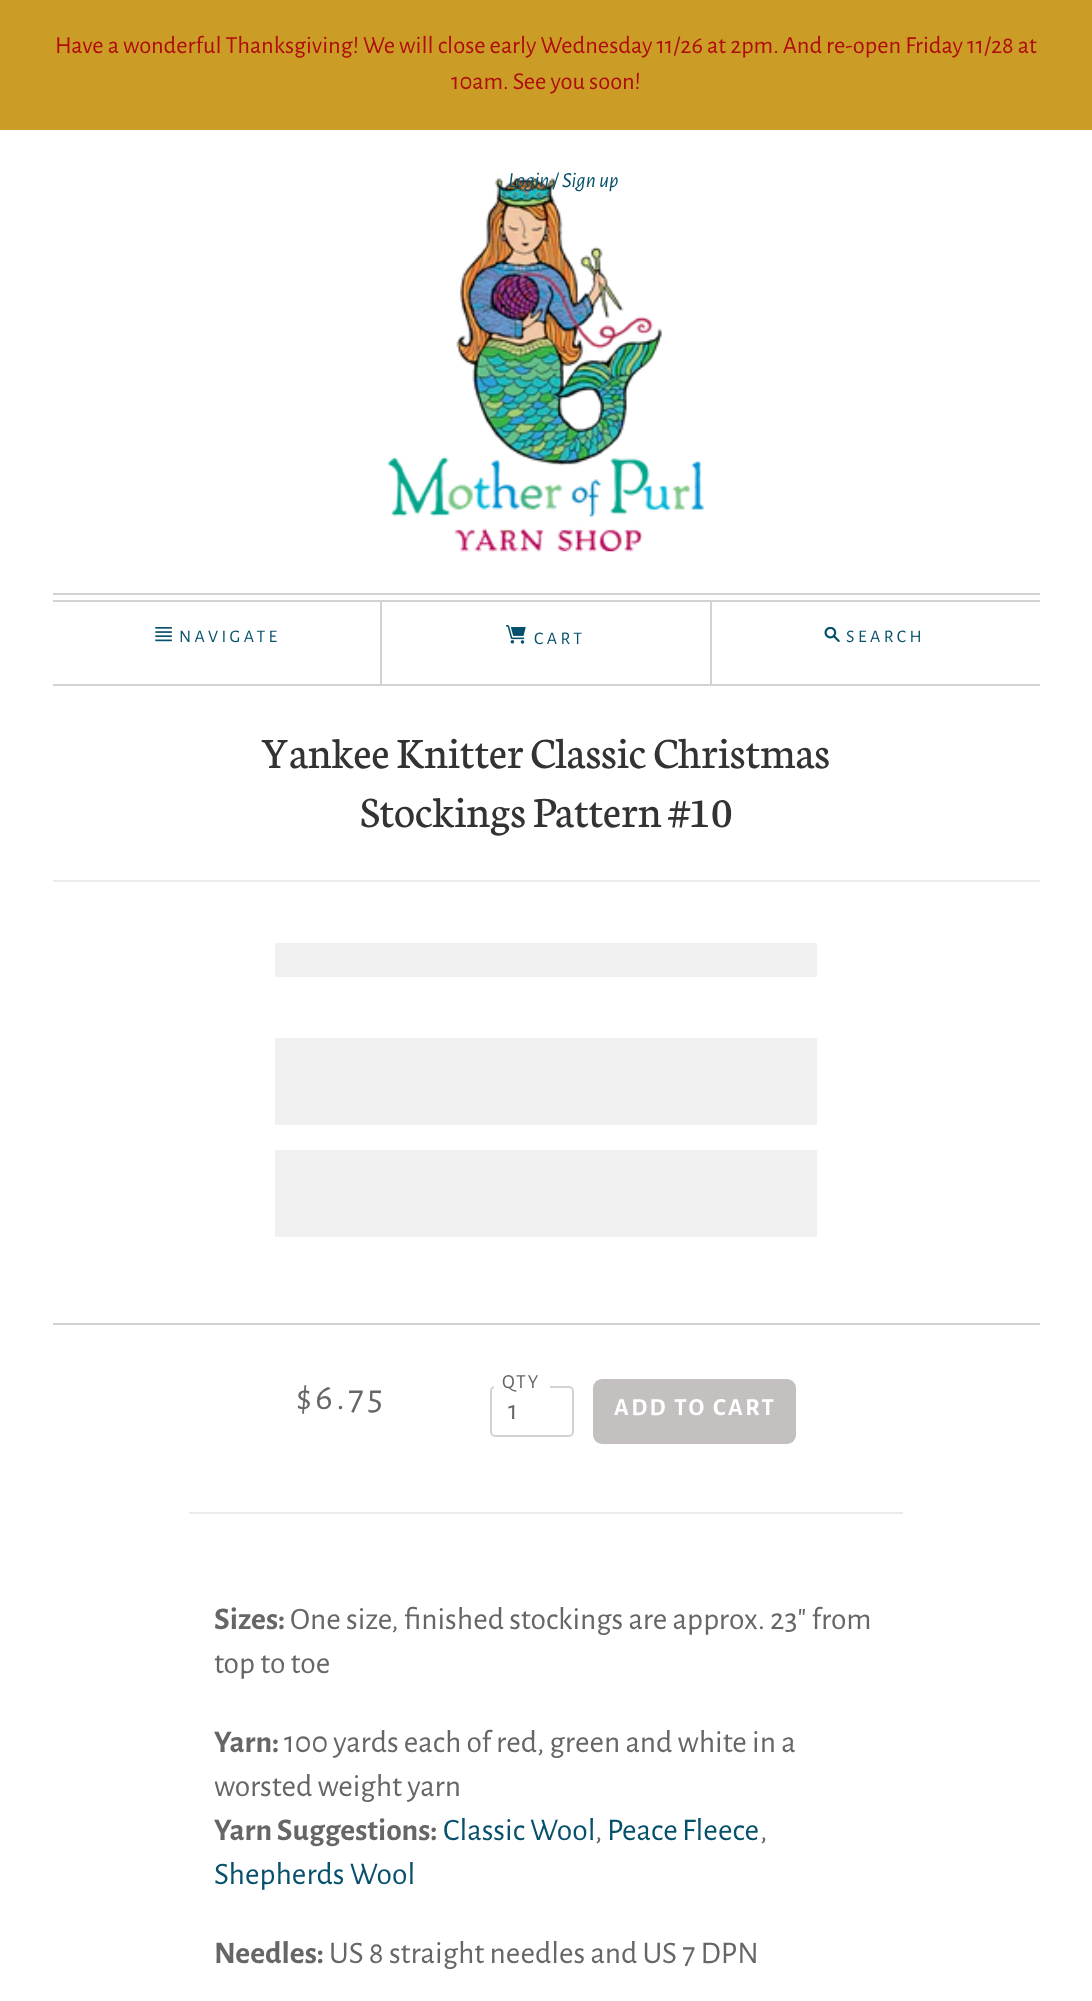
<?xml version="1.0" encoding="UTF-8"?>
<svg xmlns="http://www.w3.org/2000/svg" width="1092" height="2001">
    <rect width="100%" height="100%" fill="#FFFFFF"/>
    <rect x="0" y="0" width="1092" height="130" fill="#CC9D26"/>
    <text x="55" y="53" font-family="Alegreya Sans" font-size="24.5" fill="#AF0C0C">Have a wonderful Thanksgiving! We will close early Wednesday 11/26 at 2pm. And re-open Friday 11/28 at</text>
    <text x="451" y="89" font-family="Alegreya Sans" font-size="24.5" fill="#AF0C0C">10am. See you soon!</text>
    <image x="388" y="178" width="316" height="374" href="img_01.png"/>
    <text x="508" y="187" font-family="Alegreya Sans" font-size="21.5" font-style="italic" fill="#07506B">Login / Sign up</text>
    <rect x="53" y="600" width="987" height="2" fill="#D2D2D2"/>
    <rect x="53" y="593" width="987" height="2" fill="#D2D2D2"/>
    <path d="M 382 600 V 684 H 380 V 602 Z" fill="#D2D2D2"/>
    <image x="155" y="627" width="17" height="15" href="img_02.png"/>
    <text x="179" y="642" font-family="Alegreya Sans" font-size="17.75" letter-spacing="3.5" fill="#07506B">NAVIGATE</text>
    <image x="506" y="625" width="20" height="19" href="img_03.png"/>
    <text x="534" y="644" font-family="Alegreya Sans" font-size="17.75" letter-spacing="3.5" fill="#07506B">CART</text>
    <path d="M 710 684 V 600 L 712 602 V 684 Z" fill="#D2D2D2"/>
    <image x="824" y="627" width="16" height="15" href="img_04.png"/>
    <text x="846" y="642" font-family="Alegreya Sans" font-size="17.75" letter-spacing="3.5" fill="#07506B">SEARCH</text>
    <rect x="53" y="684" width="987" height="2" fill="#D2D2D2"/>
    <rect x="53" y="880" width="987" height="2" fill="#EBEBEB"/>
    <text x="262" y="768" font-family="Neuton" font-size="46" fill="#333333">Yankee Knitter Classic Christmas</text>
    <text x="360" y="827" font-family="Neuton" font-size="46" fill="#333333">Stockings Pattern #10</text>
    <rect x="275" y="943" width="542" height="34" fill="#F0F0F0"/>
    <rect x="275" y="1038" width="542" height="87" fill="#F0F0F0"/>
    <rect x="275" y="1150" width="542" height="87" fill="#F0F0F0"/>
    <rect x="53" y="1323" width="987" height="2" fill="#D2D2D2"/>
    <text x="296" y="1409" font-family="Alegreya Sans" font-size="37" letter-spacing="3.5" fill="#666666">$6.75</text>
    <rect x="491" y="1387" width="82" height="49" rx="4" fill="none" stroke="#D2D2D2" stroke-width="2"/>
    <rect x="494" y="1386" width="56" height="3" fill="#FFFFFF"/>
    <text x="502" y="1388" font-family="Alegreya Sans" font-size="20" letter-spacing="2" fill="#666666">QTY</text>
    <text x="508" y="1419" font-family="Alegreya Sans" font-size="28" fill="#666666">1</text>
    <rect x="593" y="1379" width="203" height="65" rx="9" fill="#C4C0C0"/>
    <text x="614" y="1415" font-family="Alegreya Sans" font-size="24.5" font-weight="700" letter-spacing="2.5" fill="#FFFFFF">ADD TO CART</text>
    <rect x="189" y="1512" width="714" height="2" fill="#EBEBEB"/>
    <text x="214" y="1629" font-family="Alegreya Sans" font-size="31.5" font-weight="700" fill="#666666">Sizes:</text>
    <text x="290" y="1629" font-family="Alegreya Sans" font-size="31.5" fill="#666666">One size, finished stockings are approx. 23" from</text>
    <text x="214" y="1673" font-family="Alegreya Sans" font-size="31.5" fill="#666666">top to toe</text>
    <text x="214" y="1752" font-family="Alegreya Sans" font-size="31.5" font-weight="700" fill="#666666">Yarn:</text>
    <text x="284" y="1752" font-family="Alegreya Sans" font-size="31.5" fill="#666666">100 yards each of red, green and white in a</text>
    <text x="214" y="1796" font-family="Alegreya Sans" font-size="31.5" fill="#666666">worsted weight yarn</text>
    <text x="214" y="1840" font-family="Alegreya Sans" font-size="31.5" font-weight="700" fill="#666666">Yarn Suggestions:</text>
    <text x="443" y="1840" font-family="Alegreya Sans" font-size="31.5" fill="#07506B">Classic Wool</text>
    <text x="595" y="1840" font-family="Alegreya Sans" font-size="31.5" fill="#666666">,</text>
    <text x="607" y="1840" word-spacing="-1" font-family="Alegreya Sans" font-size="31.5" fill="#07506B">Peace Fleece</text>
    <text x="760" y="1840" font-family="Alegreya Sans" font-size="31.5" fill="#666666">,</text>
    <text x="214" y="1884" font-family="Alegreya Sans" font-size="31.5" fill="#07506B">Shepherds Wool</text>
    <text x="214" y="1963" font-family="Alegreya Sans" font-size="31.5" font-weight="700" fill="#666666">Needles:</text>
    <text x="329" y="1963" font-family="Alegreya Sans" font-size="31.5" fill="#666666">US 8 straight needles and US 7 DPN</text>
</svg>
